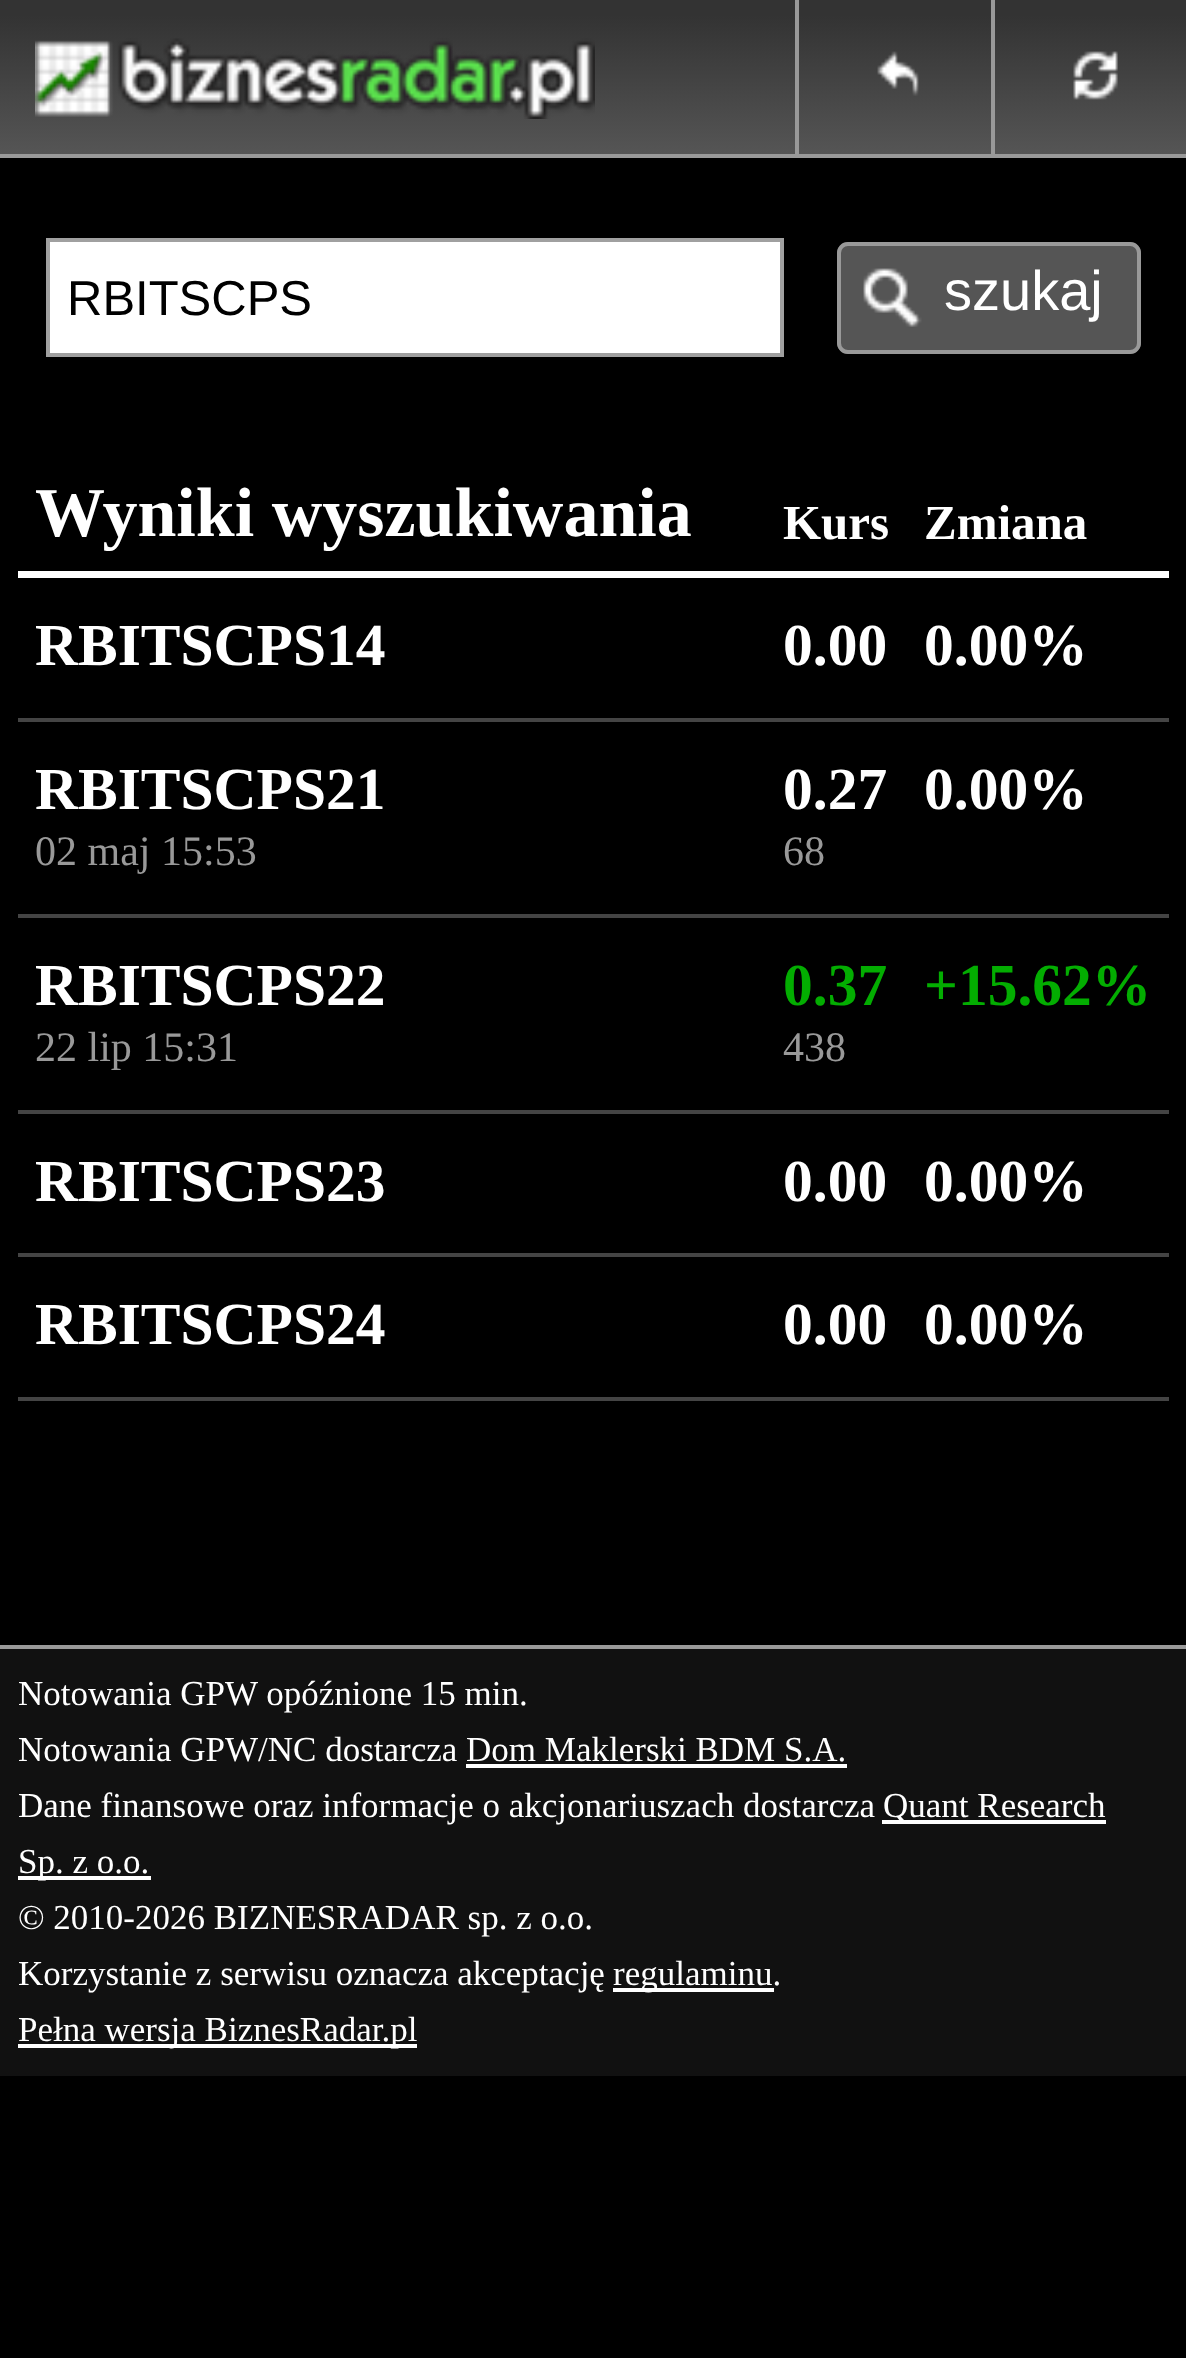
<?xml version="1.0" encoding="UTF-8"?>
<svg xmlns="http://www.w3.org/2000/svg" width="1186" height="2358">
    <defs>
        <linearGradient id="g1" gradientUnits="userSpaceOnUse" x1="0" y1="154" x2="0" y2="0"><stop offset="0" stop-color="#555555"/><stop offset="0.9" stop-color="#333333"/></linearGradient>
    </defs>
    <rect width="100%" height="100%" fill="#000000"/>
    <rect x="0" y="0" width="1186" height="154" fill="url(#g1)"/>
    <rect x="0" y="154" width="1186" height="4" fill="#999999"/>
    <image x="35" y="38" width="560" height="81" href="img_01.png"/>
    <rect x="795" y="0" width="4" height="154" fill="#999999"/>
    <image x="877" y="51" width="42" height="45" href="img_02.png"/>
    <rect x="991" y="0" width="4" height="154" fill="#999999"/>
    <image x="1073" y="51" width="45" height="49" href="img_03.png"/>
    <rect x="48" y="240" width="734" height="115" fill="#FFFFFF" stroke="#A0A0A0" stroke-width="4"/>
    <text x="67" y="315" font-family="Liberation Sans" font-size="49" fill="#000000">RBITSCPS</text>
    <rect x="837" y="242" width="304" height="112" rx="11" fill="#555555"/>
    <image x="863" y="268" width="59" height="59" href="img_04.png"/>
    <rect x="839" y="244" width="300" height="108" rx="9" fill="none" stroke="#999999" stroke-width="4"/>
    <text x="944" y="310" font-family="Liberation Sans" font-size="56" fill="#FFFFFF">szukaj</text>
    <rect x="18" y="571" width="1151" height="7" fill="#FFFFFF"/>
    <text x="35" y="536" font-family="Liberation Serif" font-size="70" font-weight="700" fill="#FFFFFF">Wyniki wyszukiwania</text>
    <text x="783" y="539" font-family="Liberation Serif" font-size="49" font-weight="700" fill="#FFFFFF">Kurs</text>
    <text x="924" y="539" font-family="Liberation Serif" font-size="49" font-weight="700" fill="#FFFFFF">Zmiana</text>
    <rect x="18" y="718" width="1151" height="4" fill="#444444"/>
    <text x="35" y="665" font-family="Liberation Serif" font-size="59.5" font-weight="700" fill="#FFFFFF">RBITSCPS14</text>
    <text x="783" y="665" font-family="Liberation Serif" font-size="59.5" font-weight="700" fill="#FFFFFF">0.00</text>
    <text x="924" y="665" font-family="Liberation Serif" font-size="59.5" font-weight="700" fill="#FFFFFF">0.00%</text>
    <rect x="18" y="914" width="1151" height="4" fill="#444444"/>
    <text x="35" y="809" font-family="Liberation Serif" font-size="59.5" font-weight="700" fill="#FFFFFF">RBITSCPS21</text>
    <text x="35" y="865" font-family="Liberation Serif" font-size="42" fill="#999999">02 maj 15:53</text>
    <text x="783" y="809" font-family="Liberation Serif" font-size="59.5" font-weight="700" fill="#FFFFFF">0.27</text>
    <text x="783" y="865" font-family="Liberation Serif" font-size="42" fill="#999999">68</text>
    <text x="924" y="809" font-family="Liberation Serif" font-size="59.5" font-weight="700" fill="#FFFFFF">0.00%</text>
    <rect x="18" y="1110" width="1151" height="4" fill="#444444"/>
    <text x="35" y="1005" font-family="Liberation Serif" font-size="59.5" font-weight="700" fill="#FFFFFF">RBITSCPS22</text>
    <text x="35" y="1061" font-family="Liberation Serif" font-size="42" fill="#999999">22 lip 15:31</text>
    <text x="783" y="1005" font-family="Liberation Serif" font-size="59.5" font-weight="700" fill="#03AD01">0.37</text>
    <text x="783" y="1061" font-family="Liberation Serif" font-size="42" fill="#999999">438</text>
    <text x="924" y="1005" font-family="Liberation Serif" font-size="59.5" font-weight="700" fill="#03AD01">+15.62%</text>
    <rect x="18" y="1253" width="1151" height="4" fill="#444444"/>
    <text x="35" y="1201" font-family="Liberation Serif" font-size="59.5" font-weight="700" fill="#FFFFFF">RBITSCPS23</text>
    <text x="783" y="1201" font-family="Liberation Serif" font-size="59.5" font-weight="700" fill="#FFFFFF">0.00</text>
    <text x="924" y="1201" font-family="Liberation Serif" font-size="59.5" font-weight="700" fill="#FFFFFF">0.00%</text>
    <rect x="18" y="1397" width="1151" height="4" fill="#444444"/>
    <text x="35" y="1344" font-family="Liberation Serif" font-size="59.5" font-weight="700" fill="#FFFFFF">RBITSCPS24</text>
    <text x="783" y="1344" font-family="Liberation Serif" font-size="59.5" font-weight="700" fill="#FFFFFF">0.00</text>
    <text x="924" y="1344" font-family="Liberation Serif" font-size="59.5" font-weight="700" fill="#FFFFFF">0.00%</text>
    <rect x="0" y="1649" width="1186" height="427" fill="#111111"/>
    <rect x="0" y="1645" width="1186" height="4" fill="#999999"/>
    <text font-family="Liberation Serif" font-size="35" fill="#FFFFFF">
        <tspan x="18" y="1705">Notowania GPW opóźnione 15 min.</tspan>
        <tspan x="18" y="1761">Notowania GPW/NC dostarcza Dom Maklerski BDM S.A.</tspan>
    </text>
    <rect x="466" y="1764" width="381" height="4" fill="#FFFFFF"/>
    <text x="18" y="1817" font-family="Liberation Serif" font-size="35" fill="#FFFFFF">Dane finansowe oraz informacje o akcjonariuszach dostarcza</text>
    <rect x="882" y="1820" width="224" height="4" fill="#FFFFFF"/>
    <text x="883" y="1817" font-family="Liberation Serif" font-size="35" fill="#FFFFFF">Quant Research</text>
    <rect x="18" y="1876" width="133" height="4" fill="#FFFFFF"/>
    <text font-family="Liberation Serif" font-size="35" fill="#FFFFFF">
        <tspan x="18" y="1873">Sp. z o.o.</tspan>
        <tspan x="18" y="1929">© 2010-2026 BIZNESRADAR sp. z o.o.</tspan>
        <tspan x="18" y="1985">Korzystanie z serwisu oznacza akceptację</tspan>
    </text>
    <rect x="613" y="1988" width="161" height="4" fill="#FFFFFF"/>
    <text x="613" y="1985" font-family="Liberation Serif" font-size="35" fill="#FFFFFF">regulaminu.</text>
    <rect x="18" y="2044" width="399" height="4" fill="#FFFFFF"/>
    <text x="18" y="2041" font-family="Liberation Serif" font-size="35" fill="#FFFFFF">Pełna wersja BiznesRadar.pl</text>
</svg>
